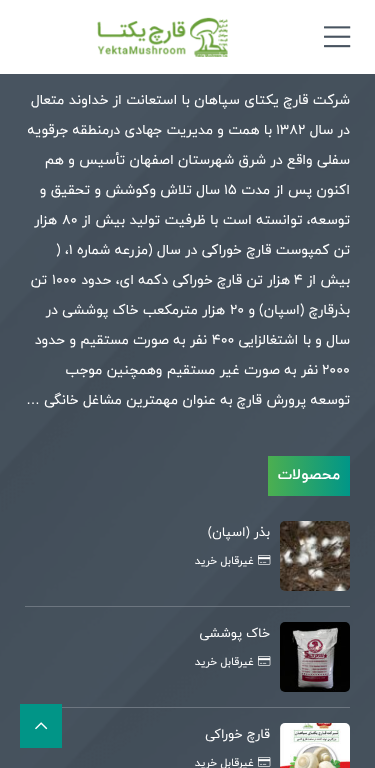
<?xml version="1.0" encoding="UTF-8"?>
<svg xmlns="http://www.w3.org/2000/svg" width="375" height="768">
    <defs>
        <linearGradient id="g1" gradientUnits="userSpaceOnUse" x1="268" y1="476" x2="350" y2="476"><stop offset="0" stop-color="#4CAF50"/><stop offset="1" stop-color="#009688"/></linearGradient>
    </defs>
    <rect width="100%" height="100%" fill="#485460"/>
    <rect x="0" y="0" width="375" height="74" fill="#FFFFFF"/>
    <image x="324" y="26" width="27" height="22" href="img_01.png"/>
    <image x="97" y="17" width="131" height="40" href="img_02.png"/>
    <image x="0" y="74" width="375" height="694" href="img_03.png"/>
    <text x="350" y="104" font-family="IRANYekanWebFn" font-size="14" direction="rtl" fill="#FFFFFF">شرکت قارچ یکتای سپاهان با استعانت از خداوند متعال</text>
    <text x="350" y="134" font-family="IRANYekanWebFn" font-size="14" direction="rtl" fill="#FFFFFF">در سال</text>
    <text x="276" y="134" font-family="IRANYekanWebFn" font-size="14" fill="#FFFFFF">1382</text>
    <text x="272" y="134" font-family="IRANYekanWebFn" font-size="14" direction="rtl" fill="#FFFFFF">با همت و مدیریت جهادی درمنطقه جرقویه</text>
    <text x="350" y="164" font-family="IRANYekanWebFn" font-size="14" direction="rtl" fill="#FFFFFF">سفلی واقع در شرق شهرستان اصفهان تأسیس و هم</text>
    <text x="350" y="194" font-family="IRANYekanWebFn" font-size="14" direction="rtl" fill="#FFFFFF">اکنون پس از مدت</text>
    <text x="224" y="194" font-family="IRANYekanWebFn" font-size="14" fill="#FFFFFF">15</text>
    <text x="220" y="194" font-family="IRANYekanWebFn" font-size="14" direction="rtl" fill="#FFFFFF">سال تلاش وکوشش و تحقیق و</text>
    <text x="350" y="224" font-family="IRANYekanWebFn" font-size="14" direction="rtl" fill="#FFFFFF">توسعه، توانسته است با ظرفیت تولید بیش از</text>
    <text x="62" y="224" font-family="IRANYekanWebFn" font-size="14" fill="#FFFFFF">80</text>
    <text x="57" y="224" font-family="IRANYekanWebFn" font-size="14" direction="rtl" fill="#FFFFFF">هزار</text>
    <text x="350" y="254" font-family="IRANYekanWebFn" font-size="14" direction="rtl" fill="#FFFFFF">تن کمپوست قارچ خوراکی در سال (مزرعه شماره</text>
    <text x="56" y="254" font-family="IRANYekanWebFn" font-size="14" fill="#FFFFFF">) ،1</text>
    <text x="350" y="284" font-family="IRANYekanWebFn" font-size="14" direction="rtl" fill="#FFFFFF">بیش از</text>
    <text x="294" y="284" font-family="IRANYekanWebFn" font-size="14" fill="#FFFFFF">4</text>
    <text x="290" y="284" font-family="IRANYekanWebFn" font-size="14" direction="rtl" fill="#FFFFFF">هزار تن قارچ خوراکی دکمه ای، حدود</text>
    <text x="52" y="284" font-family="IRANYekanWebFn" font-size="14" fill="#FFFFFF">1000</text>
    <text x="47" y="284" font-family="IRANYekanWebFn" font-size="14" direction="rtl" fill="#FFFFFF">تن</text>
    <text x="350" y="314" font-family="IRANYekanWebFn" font-size="14" direction="rtl" fill="#FFFFFF">بذرقارچ (اسپان) و</text>
    <text x="230" y="314" font-family="IRANYekanWebFn" font-size="14" fill="#FFFFFF">20</text>
    <text x="225" y="314" font-family="IRANYekanWebFn" font-size="14" direction="rtl" fill="#FFFFFF">هزار مترمکعب خاک پوششی در</text>
    <text x="350" y="344" font-family="IRANYekanWebFn" font-size="14" direction="rtl" fill="#FFFFFF">سال و با اشتغالزایی</text>
    <text x="212" y="344" font-family="IRANYekanWebFn" font-size="14" fill="#FFFFFF">400</text>
    <text x="207" y="344" font-family="IRANYekanWebFn" font-size="14" direction="rtl" fill="#FFFFFF">نفر به صورت مستقیم و حدود</text>
    <text x="322" y="374" font-family="IRANYekanWebFn" font-size="14" fill="#FFFFFF">2000</text>
    <text x="318" y="374" font-family="IRANYekanWebFn" font-size="14" direction="rtl" fill="#FFFFFF">نفر به صورت غیر مستقیم وهمچنین موجب</text>
    <text x="350" y="404" font-family="IRANYekanWebFn" font-size="14" direction="rtl" fill="#FFFFFF">توسعه پرورش قارچ به عنوان مهمترین مشاغل خانگی</text>
    <text x="40" y="404" font-family="Liberation Sans" font-size="14" direction="rtl" fill="#FFFFFF">…</text>
    <rect x="268" y="456" width="82" height="40" fill="url(#g1)"/>
    <text x="340" y="479" font-family="IRANYekanWebFn" font-size="15" font-weight="700" direction="rtl" fill="#FFFFFF">محصولات</text>
    <rect x="25" y="606" width="325" height="1" fill="#6D7680"/>
    <image x="280" y="521" width="70" height="70" href="img_04.png"/>
    <text x="270" y="536" font-family="IRANYekanWebFn" font-size="13" direction="rtl" fill="#FFFFFF">بذر (اسپان)</text>
    <image x="258" y="555" width="13" height="10" href="img_05.png"/>
    <text x="254" y="564" font-family="IRANYekanWebFn" font-size="11" direction="rtl" fill="#FFFFFF">غیرقابل خرید</text>
    <rect x="25" y="707" width="325" height="1" fill="#6D7680"/>
    <image x="280" y="622" width="70" height="70" href="img_06.png"/>
    <text x="270" y="637" font-family="IRANYekanWebFn" font-size="13" direction="rtl" fill="#FFFFFF">خاک پوششی</text>
    <image x="258" y="656" width="13" height="10" href="img_07.png"/>
    <text x="254" y="665" font-family="IRANYekanWebFn" font-size="11" direction="rtl" fill="#FFFFFF">غیرقابل خرید</text>
    <image x="280" y="723" width="70" height="45" href="img_08.png"/>
    <text x="270" y="738" font-family="IRANYekanWebFn" font-size="13" direction="rtl" fill="#FFFFFF">قارچ خوراکی</text>
    <image x="258" y="757" width="13" height="10" href="img_09.png"/>
    <text x="254" y="766" font-family="IRANYekanWebFn" font-size="11" direction="rtl" fill="#FFFFFF">غیرقابل خرید</text>
    <rect x="20" y="704" width="42" height="44" fill="#009688" fill-opacity="0.99"/>
    <image x="35" y="722" width="13" height="8" href="img_10.png"/>
</svg>
